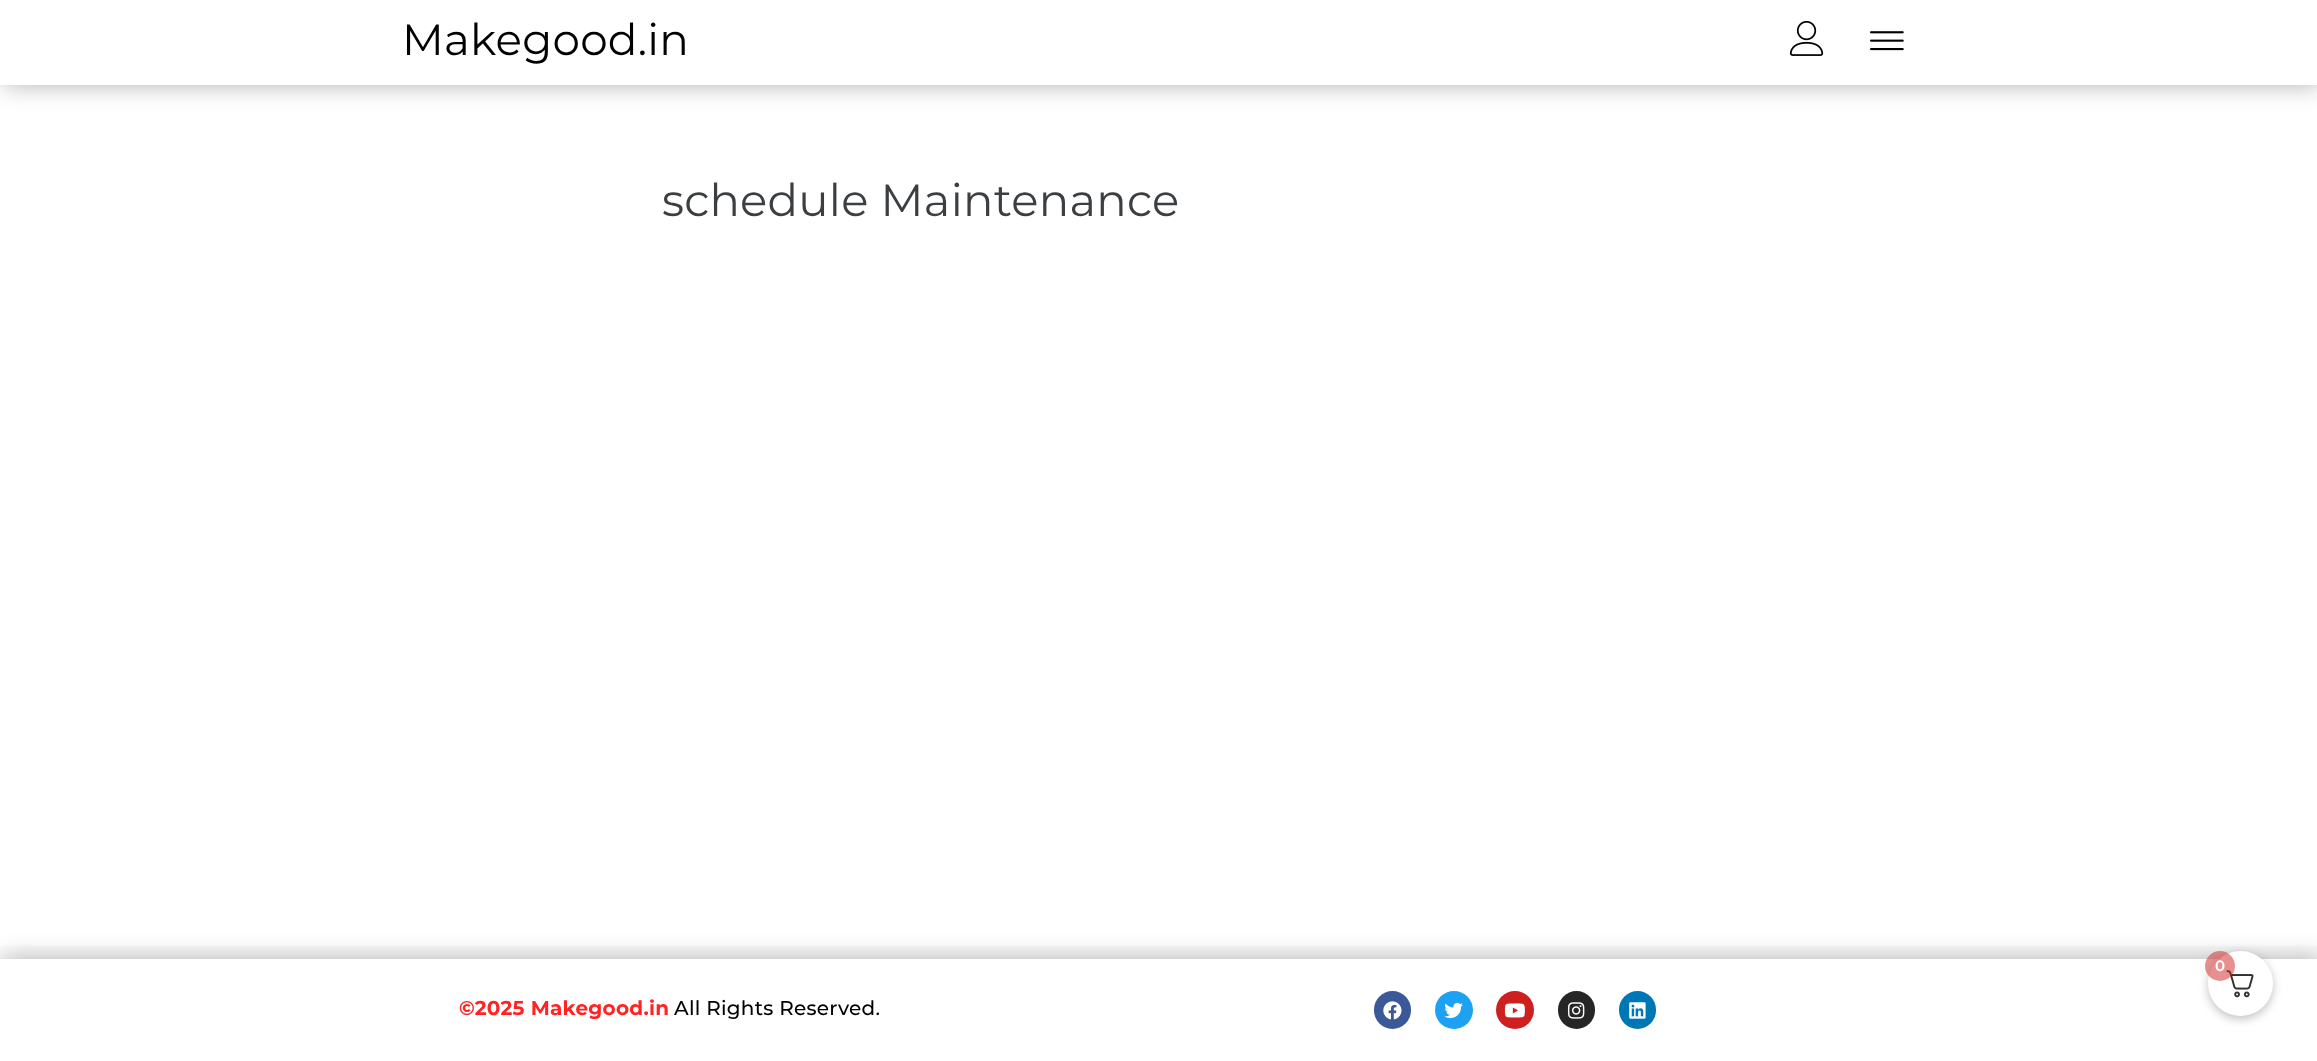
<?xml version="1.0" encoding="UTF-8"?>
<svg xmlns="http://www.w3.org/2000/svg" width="2317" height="1061">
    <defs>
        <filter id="blur1" x="-50%" y="-200%" width="200%" height="500%"><feGaussianBlur stdDeviation="12.5"/></filter>
        <filter id="blur2" x="-50%" y="-200%" width="200%" height="500%"><feGaussianBlur stdDeviation="5"/></filter>
    </defs>
    <rect width="100%" height="100%" fill="#FAFAFA"/>
    <rect x="0" y="85" width="2317" height="861" fill="#FFFFFF"/>
    <rect x="4" y="-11" width="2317" height="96" fill="#000000" fill-opacity="0.31" filter="url(#blur1)"/>
    <rect x="0" y="0" width="2317" height="85" fill="#FFFFFF"/>
    <text x="402" y="55" font-family="Montserrat" font-size="43.75" letter-spacing="0.25" fill="#000000">Makegood.in</text>
    <image x="1789" y="20" width="35" height="36" href="img_01.png"/>
    <image x="1870" y="31" width="34" height="20" href="img_02.png"/>
    <text x="662" y="216" font-family="Montserrat" font-size="45" letter-spacing="0.25" fill="#3C3F42">schedule Maintenance</text>
    <rect x="4" y="959" width="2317" height="102" fill="#000000" fill-opacity="0.31" filter="url(#blur1)"/>
    <rect x="0" y="959" width="2317" height="102" fill="#FFFFFF"/>
    <text x="459" y="1015" font-family="Montserrat" font-size="20" font-weight="700" letter-spacing="0.25" fill="#FF2323">©2025 Makegood.in</text>
    <text x="674" y="1015" font-family="Montserrat" font-size="20" font-weight="500" letter-spacing="0.25" fill="#000000">All Rights Reserved.</text>
    <rect x="1374" y="991" width="37" height="38" rx="18.5" fill="#3B5998"/>
    <image x="1383" y="1001" width="19" height="19" href="img_03.png"/>
    <circle cx="1454" cy="1010" r="19" fill="#1DA1F2"/>
    <image x="1444" y="1002" width="19" height="17" href="img_04.png"/>
    <circle cx="1515" cy="1010" r="19" fill="#CD201F"/>
    <image x="1504" y="1003" width="21" height="15" href="img_05.png"/>
    <rect x="1558" y="991" width="37" height="38" rx="18.5" fill="#262626"/>
    <image x="1567" y="1002" width="18" height="17" href="img_06.png"/>
    <rect x="1619" y="991" width="37" height="38" rx="18.5" fill="#0077B5"/>
    <image x="1629" y="1002" width="17" height="17" href="img_07.png"/>
    <rect x="2208" y="954" width="65" height="65" rx="32.5" fill="#000000" fill-opacity="0.25" filter="url(#blur2)"/>
    <circle cx="2240.5" cy="983.5" r="32.5" fill="#FFFFFF"/>
    <image x="2226" y="970" width="28" height="28" href="img_08.png"/>
    <circle cx="2220" cy="966" r="15" fill="#CF2D2D" fill-opacity="0.53"/>
    <text x="2215" y="971" font-family="Montserrat" font-size="15" font-weight="600" letter-spacing="0.25" fill="#FFFFFF">0</text>
</svg>
